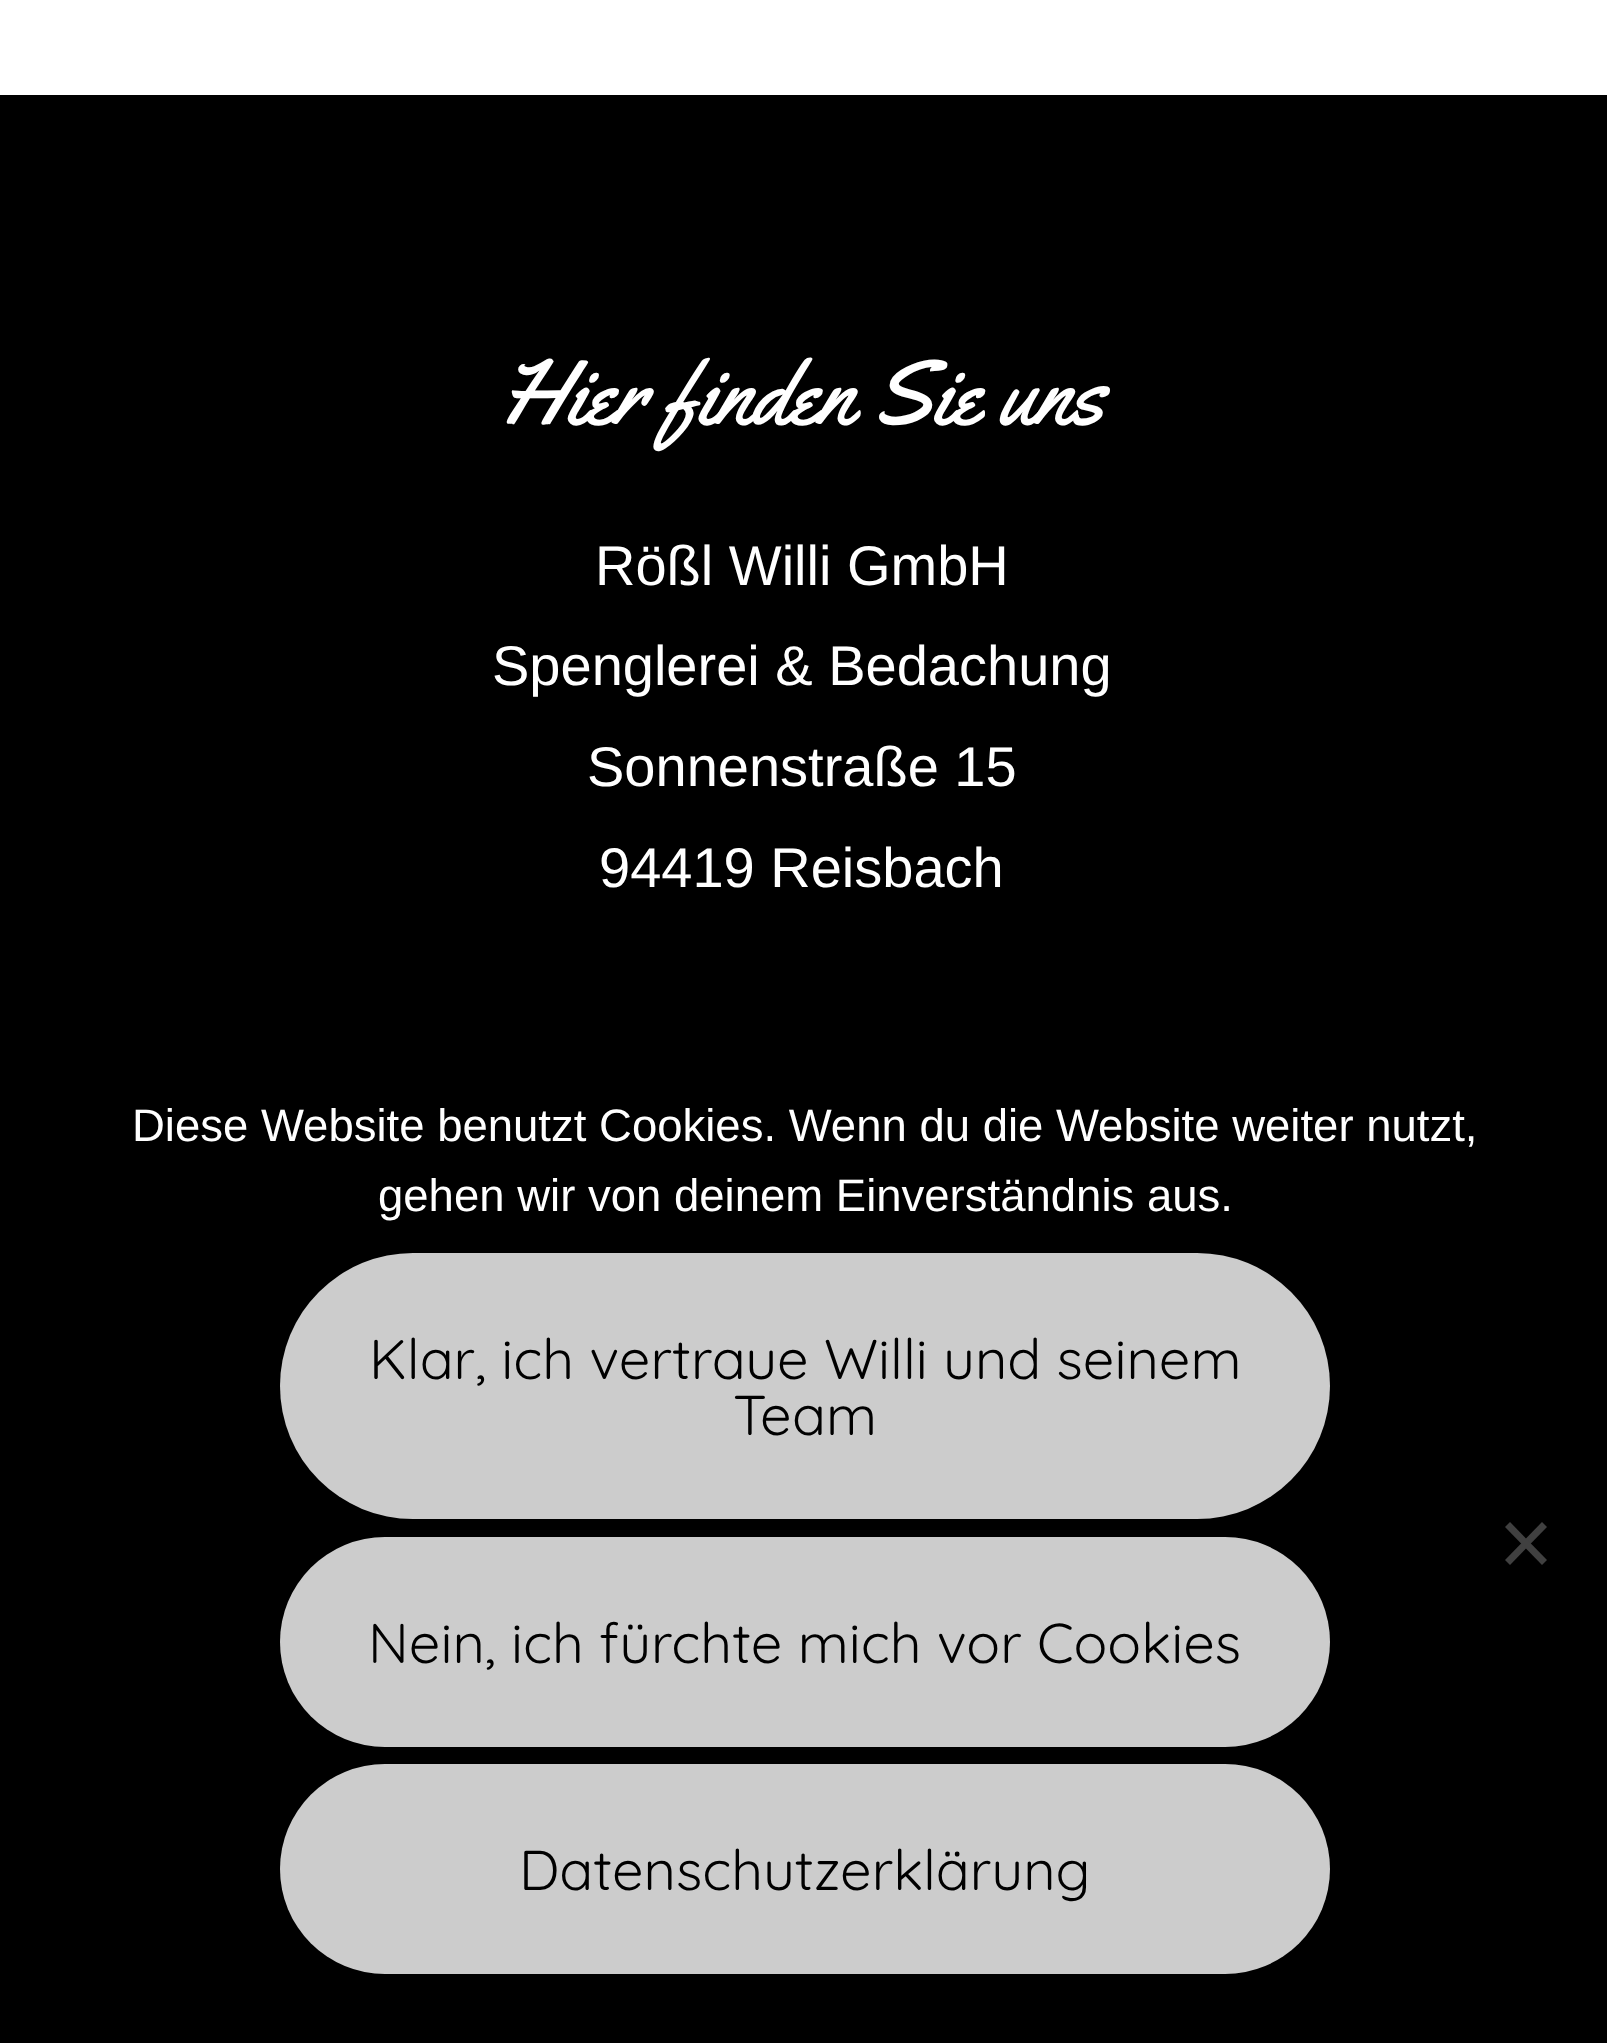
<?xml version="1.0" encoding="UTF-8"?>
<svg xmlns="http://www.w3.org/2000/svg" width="1607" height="2043">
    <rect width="100%" height="100%" fill="#FFFFFF"/>
    <rect x="0" y="95" width="1607" height="1948" fill="#000000"/>
    <text x="499" y="424" font-family="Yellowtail" font-size="91" fill="#FFFFFF">Hier finden Sie uns</text>
    <text x="595" y="585" font-family="Liberation Sans" font-size="56" fill="#FFFFFF">Rößl Willi GmbH</text>
    <text x="492" y="685" font-family="Liberation Sans" font-size="56" fill="#FFFFFF">Spenglerei &amp; Bedachung</text>
    <text x="587" y="786" font-family="Liberation Sans" font-size="56" fill="#FFFFFF">Sonnenstraße 15</text>
    <text x="599" y="887" font-family="Liberation Sans" font-size="56" fill="#FFFFFF">94419 Reisbach</text>
    <text x="132" y="1141" font-family="Liberation Sans" font-size="45.5" fill="#FFFFFF">Diese Website benutzt Cookies. Wenn du die Website weiter nutzt,</text>
    <text x="378" y="1211" font-family="Liberation Sans" font-size="45.5" fill="#FFFFFF">gehen wir von deinem Einverständnis aus.</text>
    <rect x="280" y="1253" width="1050" height="266" rx="133" fill="#CCCCCC"/>
    <text x="369" y="1379" font-family="Quicksand" font-size="56" fill="#000000">Klar, ich vertraue Willi und seinem</text>
    <text x="733" y="1435" font-family="Quicksand" font-size="56" fill="#000000">Team</text>
    <rect x="280" y="1537" width="1050" height="210" rx="105" fill="#CCCCCC"/>
    <text x="368" y="1663" font-family="Quicksand" font-size="56" fill="#000000">Nein, ich fürchte mich vor Cookies</text>
    <rect x="280" y="1764" width="1050" height="210" rx="105" fill="#CCCCCC"/>
    <text x="519" y="1890" font-family="Quicksand" font-size="56" fill="#000000">Datenschutzerklärung</text>
    <path d="M 1542 1522 L 1547 1527 L 1510 1565 L 1505 1560 Z" fill="#404040"/>
    <path d="M 1505 1527 L 1510 1522 L 1547 1560 L 1542 1565 Z" fill="#404040"/>
</svg>
